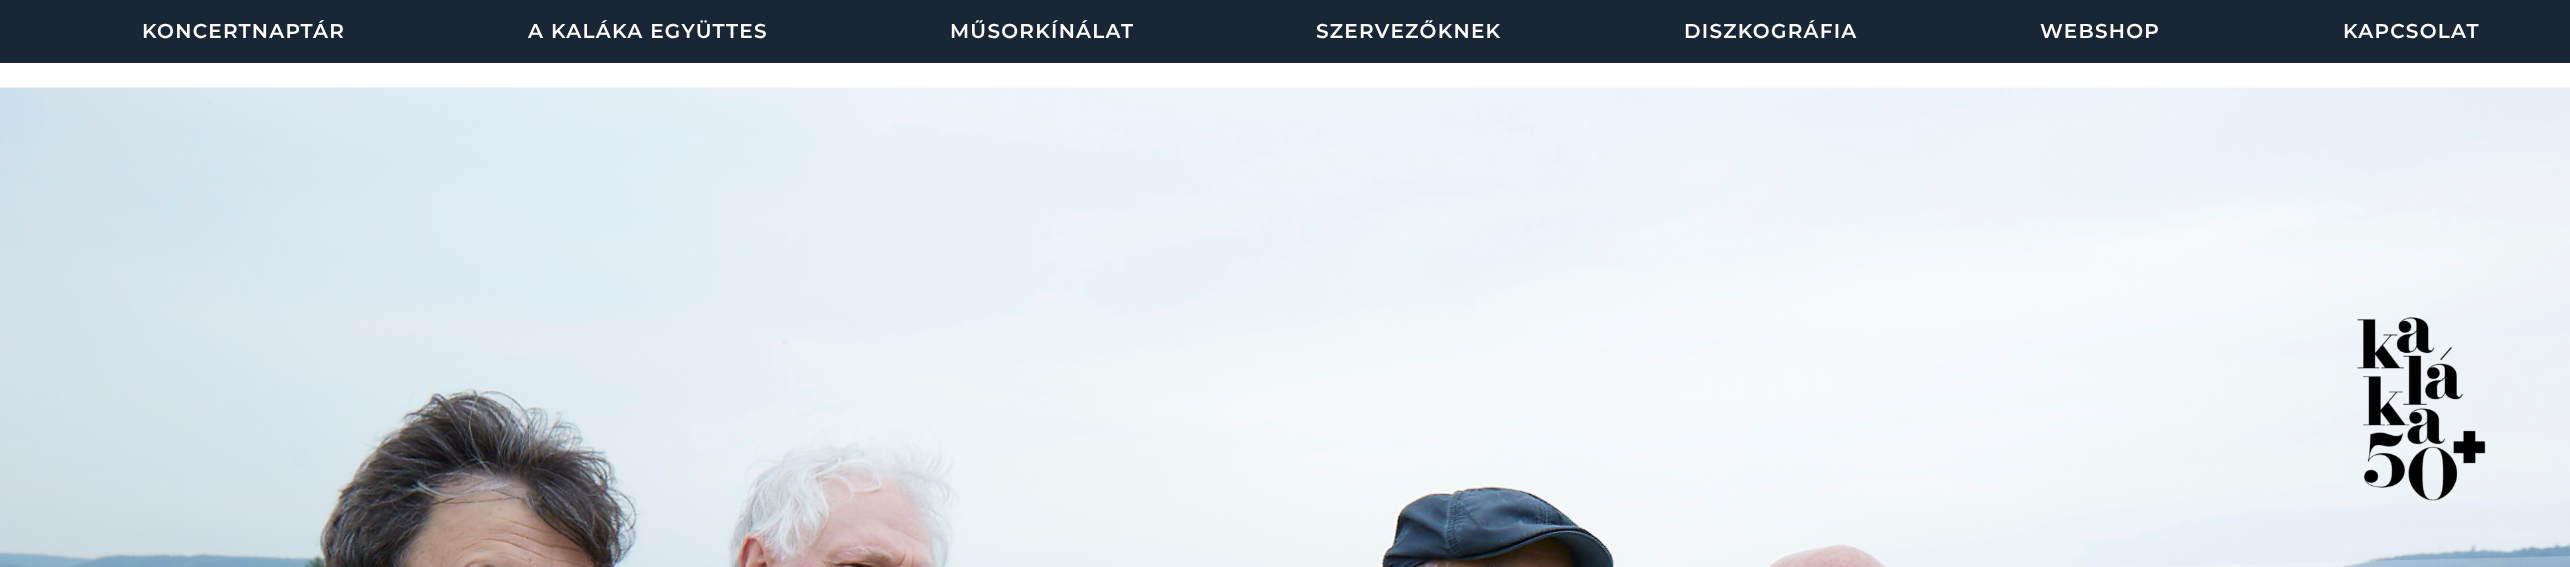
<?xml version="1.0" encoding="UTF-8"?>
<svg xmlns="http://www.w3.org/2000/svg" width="2570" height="567">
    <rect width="100%" height="100%" fill="#FFFFFF"/>
    <rect x="0" y="0" width="2570" height="63" fill="#192636"/>
    <text x="142" y="38" font-family="Montserrat" font-size="20" font-weight="600" letter-spacing="1.25" fill="#FFFFFF">KONCERTNAPTÁR</text>
    <text x="528" y="38" font-family="Montserrat" font-size="20" font-weight="600" letter-spacing="1.25" fill="#FFFFFF">A KALÁKA EGYÜTTES</text>
    <text x="950" y="38" font-family="Montserrat" font-size="20" font-weight="600" letter-spacing="1.25" fill="#FFFFFF">MŰSORKÍNÁLAT</text>
    <text x="1316" y="38" font-family="Montserrat" font-size="20" font-weight="600" letter-spacing="1.25" fill="#FFFFFF">SZERVEZŐKNEK</text>
    <text x="1684" y="38" font-family="Montserrat" font-size="20" font-weight="600" letter-spacing="1.25" fill="#FFFFFF">DISZKOGRÁFIA</text>
    <text x="2040" y="38" font-family="Montserrat" font-size="20" font-weight="600" letter-spacing="1.25" fill="#FFFFFF">WEBSHOP</text>
    <text x="2343" y="38" font-family="Montserrat" font-size="20" font-weight="600" letter-spacing="1.25" fill="#FFFFFF">KAPCSOLAT</text>
    <image x="0" y="87" width="2570" height="480" href="img_01.png"/>
    <image x="2357" y="317" width="129" height="184" href="img_02.png"/>
    <path d="M -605 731 H 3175 V 542 L -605 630 Z" fill="#FFFFFF" fill-opacity="0.25"/>
</svg>
